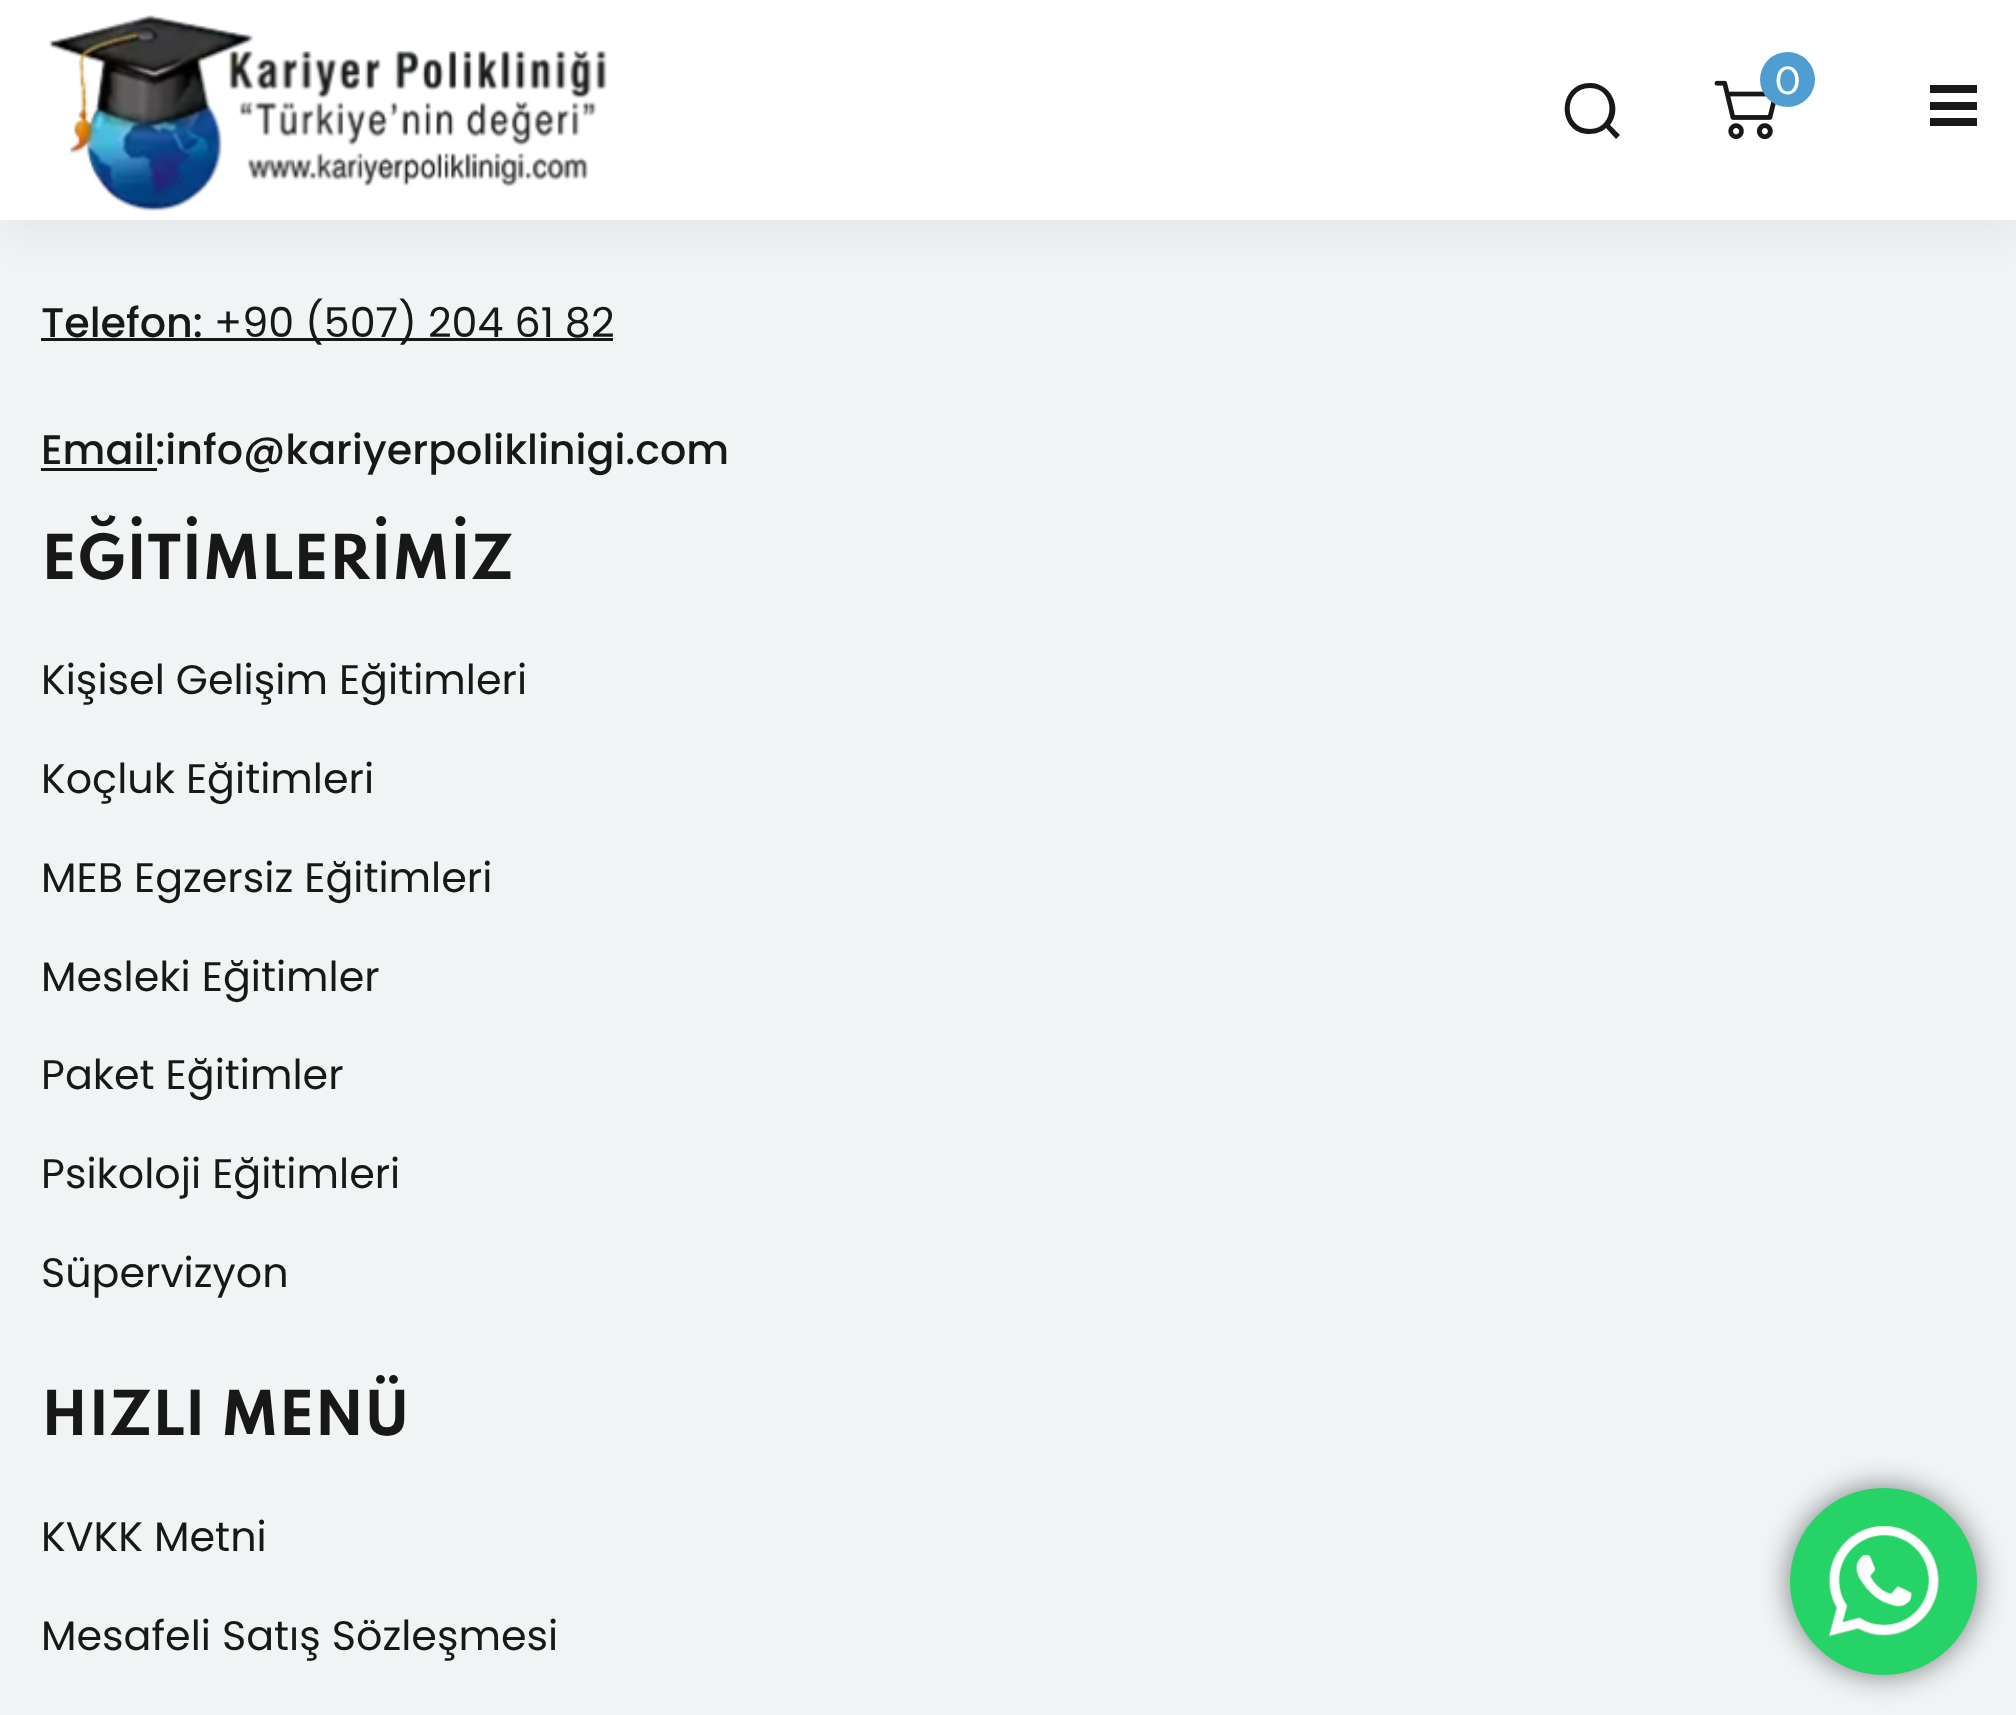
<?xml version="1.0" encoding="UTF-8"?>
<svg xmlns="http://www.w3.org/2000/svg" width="2016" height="1715">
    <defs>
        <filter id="blur1" x="-50%" y="-200%" width="200%" height="500%"><feGaussianBlur stdDeviation="20.5"/></filter>
        <filter id="blur2" x="-50%" y="-200%" width="200%" height="500%"><feGaussianBlur stdDeviation="15"/></filter>
    </defs>
    <rect width="100%" height="100%" fill="#F0F4F5"/>
    <rect x="0" y="17" width="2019" height="220" fill="#000000" fill-opacity="0.05" filter="url(#blur1)"/>
    <rect x="0" y="0" width="2016" height="220" fill="#FFFFFF"/>
    <image x="49" y="15" width="558" height="196" href="img_01.png"/>
    <path d="M 1590 83 C 1611 83 1623 108 1610 125 L 1620 135 L 1616 139 L 1606 128 C 1601 133 1594 134 1587 134 C 1556 131 1558 83 1590 83 Z M 1590 129 C 1616 129 1616 88 1590 88 C 1563 88 1563 129 1590 129 Z" fill="#181818"/>
    <image x="1714" y="80" width="62" height="60" href="img_02.png"/>
    <circle cx="1787.5" cy="79.5" r="27.5" fill="#4F9DD1"/>
    <text x="1774" y="94" font-family="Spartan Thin" font-size="33" font-weight="500" fill="#FFFFFF">0</text>
    <path d="M 1930 126 V 118 H 1977 V 126 Z M 1930 102 H 1977 V 110 H 1930 Z M 1930 85 H 1977 V 93 H 1930 Z" fill="#181818"/>
    <text x="41" y="337" font-family="Poppins" font-size="41.25" font-weight="500" fill="#181818">Telefon:</text>
    <rect x="41" y="338" width="572" height="3" fill="#181818"/>
    <text x="214" y="337" font-family="Poppins" font-size="41.25" fill="#181818">+90 (507) 204 61 82</text>
    <rect x="41" y="468" width="116" height="3" fill="#181818"/>
    <text x="41" y="464" font-family="Poppins" font-size="41.25" font-weight="500" fill="#181818">Email:info@kariyerpoliklinigi.com</text>
    <text x="41" y="579" font-family="Spartan Thin" font-size="55" font-weight="700" fill="#181818">EĞİTİMLERİMİZ</text>
    <text x="41" y="694" font-family="Poppins" font-size="41.25" fill="#181818">Kişisel Gelişim Eğitimleri</text>
    <text x="41" y="793" font-family="Poppins" font-size="41.25" fill="#181818">Koçluk Eğitimleri</text>
    <text x="41" y="892" font-family="Poppins" font-size="41.25" fill="#181818">MEB Egzersiz Eğitimleri</text>
    <text x="41" y="991" font-family="Poppins" font-size="41.25" fill="#181818">Mesleki Eğitimler</text>
    <text x="41" y="1089" font-family="Poppins" font-size="41.25" fill="#181818">Paket Eğitimler</text>
    <text x="41" y="1188" font-family="Poppins" font-size="41.25" fill="#181818">Psikoloji Eğitimleri</text>
    <text x="41" y="1287" font-family="Poppins" font-size="41.25" fill="#181818">Süpervizyon</text>
    <text x="41" y="1435" font-family="Spartan Thin" font-size="55" font-weight="700" fill="#181818">HIZLI MENÜ</text>
    <text x="41" y="1551" font-family="Poppins" font-size="41.25" fill="#181818">KVKK Metni</text>
    <text x="41" y="1650" font-family="Poppins" font-size="41.25" fill="#181818">Mesafeli Satış Sözleşmesi</text>
    <rect x="1790" y="1488" width="187" height="187" rx="93.5" fill="#000000" fill-opacity="0.5" filter="url(#blur2)"/>
    <circle cx="1883.5" cy="1581.5" r="93.5" fill="#25D366"/>
    <image x="1828" y="1526" width="111" height="111" href="img_03.png"/>
</svg>
